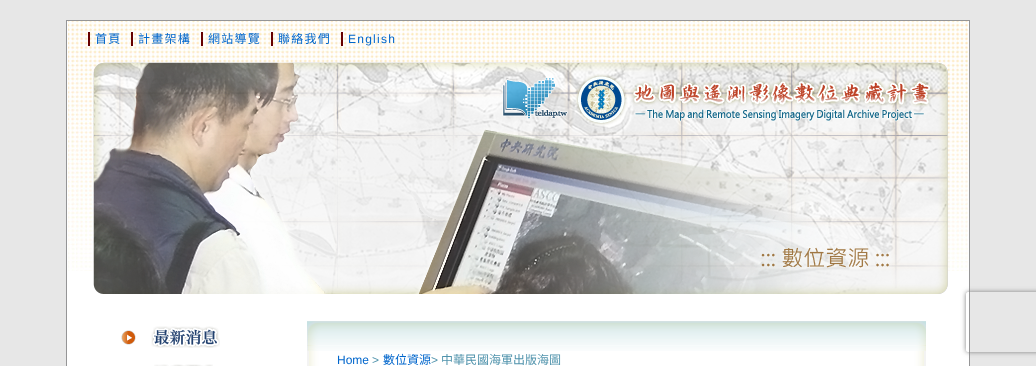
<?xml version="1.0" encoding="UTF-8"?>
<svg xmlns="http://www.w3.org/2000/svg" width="1036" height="366">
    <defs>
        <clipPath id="clip1"><path d="M 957 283 H 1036 V 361 H 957 Z M 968 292 H 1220 C 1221 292 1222 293 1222 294 V 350 C 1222 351 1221 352 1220 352 H 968 C 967 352 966 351 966 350 V 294 C 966 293 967 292 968 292 Z" clip-rule="evenodd"/></clipPath>
        <filter id="blur1" x="-50%" y="-200%" width="200%" height="500%"><feGaussianBlur stdDeviation="2.5"/></filter>
    </defs>
    <rect width="100%" height="100%" fill="#E7E7E7"/>
    <rect x="66.5" y="20.5" width="903" height="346" fill="#FFFFFF" stroke="#959596"/>
    <image x="68" y="21" width="900" height="250" href="img_01.png"/>
    <text x="95" y="43" font-family="Noto Sans CJK TC" font-size="12" letter-spacing="1.25" fill="#0066CC">首頁</text>
    <rect x="88" y="32" width="2" height="14" fill="#660000"/>
    <text x="138" y="43" font-family="Noto Sans CJK TC" font-size="12" letter-spacing="1.25" fill="#0066CC">計畫架構</text>
    <rect x="131" y="32" width="2" height="14" fill="#660000"/>
    <text x="208" y="43" font-family="Noto Sans CJK TC" font-size="12" letter-spacing="1.25" fill="#0066CC">網站導覽</text>
    <rect x="201" y="32" width="2" height="14" fill="#660000"/>
    <text x="278" y="43" font-family="Noto Sans CJK TC" font-size="12" letter-spacing="1.25" fill="#0066CC">聯絡我們</text>
    <rect x="271" y="32" width="2" height="14" fill="#660000"/>
    <text x="348" y="43" font-family="Liberation Sans" font-size="12" letter-spacing="1.25" fill="#0066CC">English</text>
    <rect x="341" y="32" width="2" height="14" fill="#660000"/>
    <image x="93" y="62" width="855" height="232" href="img_02.png"/>
    <image x="121" y="326" width="99" height="22" href="img_03.png"/>
    <image x="154" y="364" width="59" height="2" href="img_04.png"/>
    <image x="307" y="321" width="619" height="30" href="img_05.png"/>
    <image x="307" y="351" width="619" height="15" href="img_06.png"/>
    <text x="337" y="364" font-family="Liberation Sans" font-size="12" fill="#0066CC">Home</text>
    <text x="372" y="364" font-family="Liberation Sans" font-size="12" fill="#5093AC">&gt;</text>
    <text x="383" y="364" font-family="Noto Sans CJK TC" font-size="12" fill="#0066CC">數位資源</text>
    <text x="431" y="364" font-family="Liberation Sans" font-size="12" fill="#5093AC">&gt;</text>
    <text x="441" y="364" font-family="Noto Sans CJK TC" font-size="12" fill="#5093AC">中華民國海軍出版海圖</text>
    <g clip-path="url(#clip1)">
        <rect x="966" y="292" width="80" height="60" rx="2" fill="#808080" filter="url(#blur1)"/>
    </g>
</svg>
